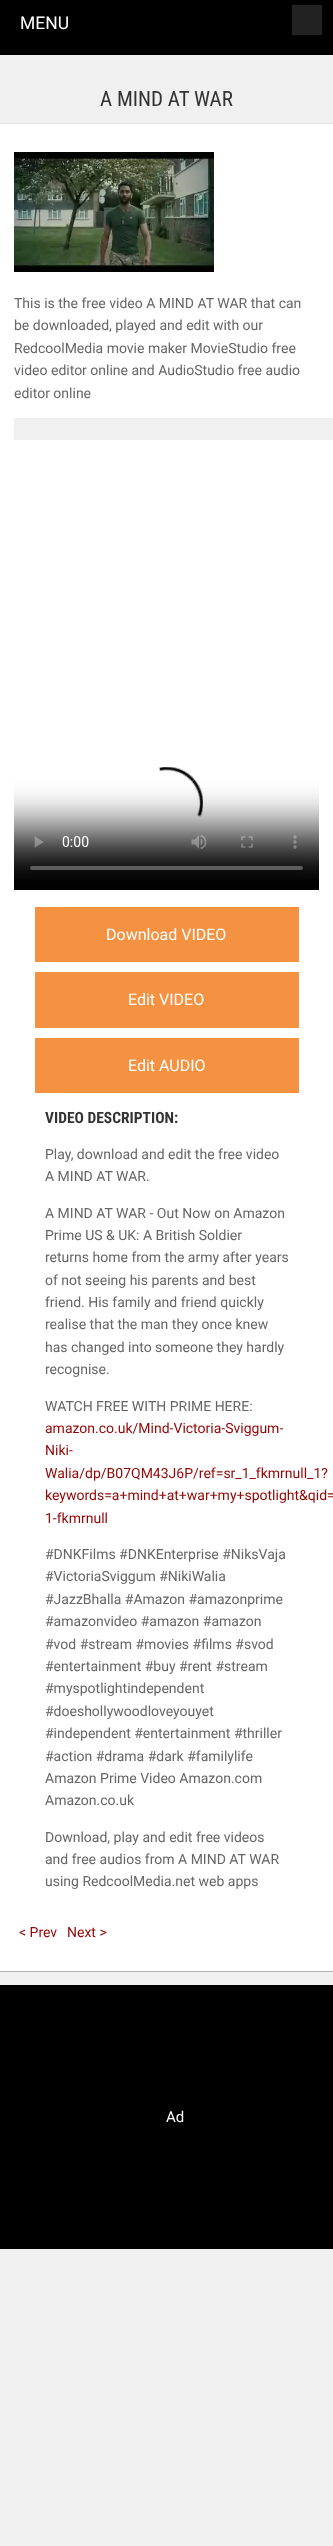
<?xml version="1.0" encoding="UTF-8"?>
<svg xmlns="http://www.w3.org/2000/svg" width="333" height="2546">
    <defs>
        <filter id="blur1" x="-50%" y="-200%" width="200%" height="500%"><feGaussianBlur stdDeviation="0.5"/></filter>
    </defs>
    <rect width="100%" height="100%" fill="#F0F0F0"/>
    <rect x="0" y="0" width="333" height="55" fill="#000000"/>
    <text x="20" y="29" font-family="'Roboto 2'" font-size="17.5" fill="#FFFFFF">MENU</text>
    <rect x="292" y="5" width="30" height="30" fill="#222222"/>
    <text x="100" y="106" font-family="Roboto" font-size="21" fill="#333333">A MIND AT WAR</text>
    <rect x="0" y="124" width="333" height="1848" fill="#000000" fill-opacity="0.25" filter="url(#blur1)"/>
    <rect x="0" y="124" width="333" height="1847" fill="#FFFFFF"/>
    <rect x="0" y="123" width="333" height="1" fill="#E6E6E6"/>
    <image x="14" y="152" width="200" height="120" href="img_01.png"/>
    <text font-family="'Roboto 2'" font-size="14" fill="#666666">
        <tspan x="14" y="308">This is the free video A MIND AT WAR that can</tspan>
        <tspan x="14" y="330">be downloaded, played and edit with our</tspan>
        <tspan x="14" y="353">RedcoolMedia movie maker MovieStudio free</tspan>
        <tspan x="14" y="375">video editor online and AudioStudio free audio</tspan>
        <tspan x="14" y="398">editor online</tspan>
    </text>
    <rect x="14" y="418" width="319" height="22" fill="#F0F0F0"/>
    <image x="14" y="767" width="305" height="123" href="img_02.png"/>
    <rect x="35" y="907" width="264" height="55" fill="#F49242"/>
    <text x="106" y="940" font-family="'Roboto 2'" font-size="16" fill="#FFFFFF">Download VIDEO</text>
    <rect x="35" y="972" width="264" height="56" fill="#F49242"/>
    <text x="128" y="1005" font-family="'Roboto 2'" font-size="16" fill="#FFFFFF">Edit VIDEO</text>
    <rect x="35" y="1038" width="264" height="55" fill="#F49242"/>
    <text x="128" y="1071" font-family="'Roboto 2'" font-size="16" fill="#FFFFFF">Edit AUDIO</text>
    <text x="45" y="1123" font-family="Roboto" font-size="15.5" font-weight="700" fill="#333333">VIDEO DESCRIPTION:</text>
    <text font-family="'Roboto 2'" font-size="14" fill="#666666">
        <tspan x="45" y="1159">Play, download and edit the free video</tspan>
        <tspan x="45" y="1181">A MIND AT WAR.</tspan>
    </text>
    <text font-family="'Roboto 2'" font-size="14" fill="#666666">
        <tspan x="45" y="1218">A MIND AT WAR - Out Now on Amazon</tspan>
        <tspan x="45" y="1240">Prime US &amp; UK: A British Soldier</tspan>
        <tspan x="45" y="1262">returns home from the army after years</tspan>
        <tspan x="45" y="1285">of not seeing his parents and best</tspan>
        <tspan x="45" y="1307">friend. His family and friend quickly</tspan>
        <tspan x="45" y="1329">realise that the man they once knew</tspan>
        <tspan x="45" y="1352">has changed into someone they hardly</tspan>
        <tspan x="45" y="1374">recognise.</tspan>
    </text>
    <text x="45" y="1411" font-family="'Roboto 2'" font-size="14" fill="#666666">WATCH FREE WITH PRIME HERE:</text>
    <text font-family="'Roboto 2'" font-size="14" fill="#920606">
        <tspan x="45" y="1433">amazon.co.uk/Mind-Victoria-Sviggum-</tspan>
        <tspan x="45" y="1455">Niki-</tspan>
        <tspan x="45" y="1478">Walia/dp/B07QM43J6P/ref=sr_1_fkmrnull_1?</tspan>
        <tspan x="45" y="1500">keywords=a+mind+at+war+my+spotlight&amp;qid=</tspan>
        <tspan x="45" y="1523">1-fkmrnull</tspan>
    </text>
    <text font-family="'Roboto 2'" font-size="14" fill="#666666">
        <tspan x="45" y="1559">#DNKFilms #DNKEnterprise #NiksVaja</tspan>
        <tspan x="45" y="1581">#VictoriaSviggum #NikiWalia</tspan>
        <tspan x="45" y="1604">#JazzBhalla #Amazon #amazonprime</tspan>
        <tspan x="45" y="1626">#amazonvideo #amazon #amazon</tspan>
        <tspan x="45" y="1649">#vod #stream #movies #films #svod</tspan>
        <tspan x="45" y="1671">#entertainment #buy #rent #stream</tspan>
        <tspan x="45" y="1693">#myspotlightindependent</tspan>
        <tspan x="45" y="1716">#doeshollywoodloveyouyet</tspan>
        <tspan x="45" y="1738">#independent #entertainment #thriller</tspan>
        <tspan x="45" y="1761">#action #drama #dark #familylife</tspan>
        <tspan x="45" y="1783">Amazon Prime Video Amazon.com</tspan>
        <tspan x="45" y="1805">Amazon.co.uk</tspan>
    </text>
    <text font-family="'Roboto 2'" font-size="14" fill="#666666">
        <tspan x="45" y="1842">Download, play and edit free videos</tspan>
        <tspan x="45" y="1864">and free audios from A MIND AT WAR</tspan>
        <tspan x="45" y="1886">using RedcoolMedia.net web apps</tspan>
    </text>
    <text x="19" y="1937" font-family="'Roboto 2'" font-size="14" fill="#920606">&lt; Prev</text>
    <text x="67" y="1937" font-family="'Roboto 2'" font-size="14" fill="#920606">Next &gt;</text>
    <rect x="0" y="1985" width="333" height="264" fill="#000000"/>
    <text x="166" y="2122" font-family="'Roboto 2'" font-size="15" fill="#FFFFFF">Ad</text>
</svg>
